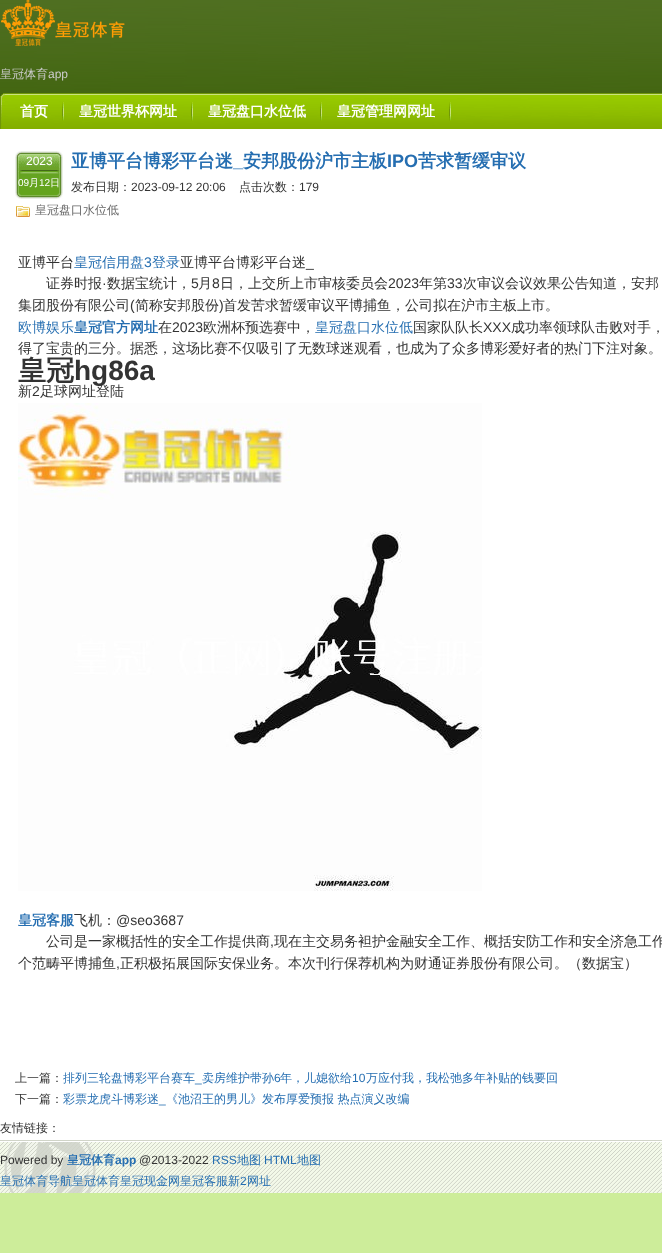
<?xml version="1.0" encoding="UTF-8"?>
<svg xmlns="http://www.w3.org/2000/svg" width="662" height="1253">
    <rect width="100%" height="100%" fill="#CDED9A"/>
    <image x="0" y="0" width="662" height="93" href="img_01.png"/>
    <image x="1" y="0" width="124" height="46" href="img_02.png"/>
    <text x="0" y="78" font-family="WenQuanYi Zen Hei" font-size="12" font-weight="500" fill="#CCCCCC">皇冠体育</text>
    <text x="48" y="78" font-family="Liberation Sans" font-size="12" fill="#CCCCCC">app</text>
    <image x="0" y="93" width="662" height="36" href="img_03.png"/>
    <image x="62" y="102" width="2" height="19" href="img_04.png"/>
    <text x="20" y="116" font-family="WenQuanYi Zen Hei" font-size="14" font-weight="700" fill="#FFFFFF">首页</text>
    <image x="191" y="102" width="2" height="19" href="img_04.png"/>
    <text x="79" y="116" font-family="WenQuanYi Zen Hei" font-size="14" font-weight="700" fill="#FFFFFF">皇冠世界杯网址</text>
    <image x="320" y="102" width="2" height="19" href="img_04.png"/>
    <text x="208" y="116" font-family="WenQuanYi Zen Hei" font-size="14" font-weight="700" fill="#FFFFFF">皇冠盘口水位低</text>
    <image x="449" y="102" width="2" height="19" href="img_04.png"/>
    <text x="337" y="116" font-family="WenQuanYi Zen Hei" font-size="14" font-weight="700" fill="#FFFFFF">皇冠管理网网址</text>
    <rect x="0" y="129" width="662" height="1011" fill="#FFFFFF"/>
    <image x="15" y="151" width="48" height="48" href="img_05.png"/>
    <text x="26" y="165" font-family="Liberation Sans" font-size="12" fill="#FFFFFF">2023</text>
    <text x="18" y="186" font-family="Liberation Sans" font-size="10" fill="#FFFFFF">09</text>
    <text x="29" y="186" font-family="WenQuanYi Zen Hei" font-size="10" font-weight="500" fill="#FFFFFF">月</text>
    <text x="39" y="186" font-family="Liberation Sans" font-size="10" fill="#FFFFFF">12</text>
    <text x="50" y="186" font-family="WenQuanYi Zen Hei" font-size="10" font-weight="500" fill="#FFFFFF">日</text>
    <text x="71" y="167" font-family="WenQuanYi Zen Hei" font-size="18" font-weight="700" fill="#256EB1">亚博平台博彩平台迷</text>
    <text x="233" y="167" font-family="Liberation Sans" font-size="18" font-weight="700" fill="#256EB1">_</text>
    <text x="243" y="167" font-family="WenQuanYi Zen Hei" font-size="18" font-weight="700" fill="#256EB1">安邦股份沪市主板</text>
    <text x="387" y="167" font-family="Liberation Sans" font-size="18" font-weight="700" fill="#256EB1">IPO</text>
    <text x="418" y="167" font-family="WenQuanYi Zen Hei" font-size="18" font-weight="700" fill="#256EB1">苦求暂缓审议</text>
    <text x="71" y="191" font-family="WenQuanYi Zen Hei" font-size="12" font-weight="500" fill="#333333">发布日期：</text>
    <text x="131" y="191" font-family="Liberation Sans" font-size="12" fill="#333333">2023-09-12 20:06</text>
    <text x="239" y="191" font-family="WenQuanYi Zen Hei" font-size="12" font-weight="500" fill="#333333">点击次数：</text>
    <text x="299" y="191" font-family="Liberation Sans" font-size="12" fill="#333333">179</text>
    <image x="16" y="206" width="14" height="11" href="img_06.png"/>
    <text x="35" y="214" font-family="WenQuanYi Zen Hei" font-size="12" font-weight="500" fill="#666666">皇冠盘口水位低</text>
    <text x="18" y="267" font-family="WenQuanYi Zen Hei" font-size="14" font-weight="500" fill="#333333">亚博平台</text>
    <text x="74" y="267" font-family="WenQuanYi Zen Hei" font-size="14" font-weight="500" fill="#256EB1">皇冠信用盘</text>
    <text x="144" y="267" font-family="Liberation Sans" font-size="14" fill="#256EB1">3</text>
    <text x="152" y="267" font-family="WenQuanYi Zen Hei" font-size="14" font-weight="500" fill="#256EB1">登录</text>
    <text x="180" y="267" font-family="WenQuanYi Zen Hei" font-size="14" font-weight="500" fill="#333333">亚博平台博彩平台迷</text>
    <text x="306" y="267" font-family="Liberation Sans" font-size="14" fill="#333333">_</text>
    <text x="46" y="288" font-family="WenQuanYi Zen Hei" font-size="14" font-weight="500" fill="#333333">证券时报</text>
    <text x="102" y="288" font-family="Liberation Sans" font-size="14" fill="#333333">·</text>
    <text x="107" y="288" font-family="WenQuanYi Zen Hei" font-size="14" font-weight="500" fill="#333333">数据宝统计，</text>
    <text x="191" y="288" font-family="Liberation Sans" font-size="14" fill="#333333">5</text>
    <text x="198" y="288" font-family="WenQuanYi Zen Hei" font-size="14" font-weight="500" fill="#333333">月</text>
    <text x="212" y="288" font-family="Liberation Sans" font-size="14" fill="#333333">8</text>
    <text x="220" y="288" font-family="WenQuanYi Zen Hei" font-size="14" font-weight="500" fill="#333333">日，上交所上市审核委员会</text>
    <text x="388" y="288" font-family="Liberation Sans" font-size="14" fill="#333333">2023</text>
    <text x="419" y="288" font-family="WenQuanYi Zen Hei" font-size="14" font-weight="500" fill="#333333">年第</text>
    <text x="447" y="288" font-family="Liberation Sans" font-size="14" fill="#333333">33</text>
    <text x="463" y="288" font-family="WenQuanYi Zen Hei" font-size="14" font-weight="500" fill="#333333">次审议会议效果公告知道，安邦</text>
    <text x="18" y="310" font-family="WenQuanYi Zen Hei" font-size="14" font-weight="500" fill="#333333">集团股份有限公司</text>
    <text x="130" y="310" font-family="Liberation Sans" font-size="14" fill="#333333">(</text>
    <text x="135" y="310" font-family="WenQuanYi Zen Hei" font-size="14" font-weight="500" fill="#333333">简称安邦股份</text>
    <text x="219" y="310" font-family="Liberation Sans" font-size="14" fill="#333333">)</text>
    <text x="223" y="310" font-family="WenQuanYi Zen Hei" font-size="14" font-weight="500" fill="#333333">首发苦求暂缓审议平博捕鱼，公司拟在沪市主板上市。</text>
    <text x="18" y="332" font-family="WenQuanYi Zen Hei" font-size="14" font-weight="500" fill="#256EB1">欧博娱乐</text>
    <text x="74" y="332" font-family="WenQuanYi Zen Hei" font-size="14" font-weight="700" fill="#256EB1">皇冠官方网址</text>
    <text x="158" y="332" font-family="WenQuanYi Zen Hei" font-size="14" font-weight="500" fill="#333333">在</text>
    <text x="172" y="332" font-family="Liberation Sans" font-size="14" fill="#333333">2023</text>
    <text x="203" y="332" font-family="WenQuanYi Zen Hei" font-size="14" font-weight="500" fill="#333333">欧洲杯预选赛中，</text>
    <text x="315" y="332" font-family="WenQuanYi Zen Hei" font-size="14" font-weight="500" fill="#256EB1">皇冠盘口水位低</text>
    <text x="413" y="332" font-family="WenQuanYi Zen Hei" font-size="14" font-weight="500" fill="#333333">国家队队长</text>
    <text x="483" y="332" font-family="Liberation Sans" font-size="14" fill="#333333">XXX</text>
    <text x="511" y="332" font-family="WenQuanYi Zen Hei" font-size="14" font-weight="500" fill="#333333">成功率领球队击败对手，</text>
    <text x="18" y="353" font-family="WenQuanYi Zen Hei" font-size="14" font-weight="500" fill="#333333">得了宝贵的三分。据悉，这场比赛不仅吸引了无数球迷观看，也成为了众多博彩爱好者的热门下注对象。</text>
    <text x="18" y="380" font-family="WenQuanYi Zen Hei" font-size="28" font-weight="700" fill="#333333">皇冠</text>
    <text x="74" y="380" font-family="Liberation Sans" font-size="28" font-weight="700" fill="#333333">hg86a</text>
    <text x="18" y="396" font-family="WenQuanYi Zen Hei" font-size="14" font-weight="500" fill="#333333">新</text>
    <text x="32" y="396" font-family="Liberation Sans" font-size="14" fill="#333333">2</text>
    <text x="40" y="396" font-family="WenQuanYi Zen Hei" font-size="14" font-weight="500" fill="#333333">足球网址登陆</text>
    <image x="18" y="403" width="464" height="488" href="img_07.png"/>
    <text x="18" y="925" font-family="WenQuanYi Zen Hei" font-size="14" font-weight="700" fill="#256EB1">皇冠客服</text>
    <text x="74" y="925" font-family="WenQuanYi Zen Hei" font-size="14" font-weight="500" fill="#333333">飞机：</text>
    <text x="116" y="925" font-family="Liberation Sans" font-size="14" fill="#333333">@seo3687</text>
    <text x="46" y="946" font-family="WenQuanYi Zen Hei" font-size="14" font-weight="500" fill="#333333">公司是一家概括性的安全工作提供商</text>
    <text x="270" y="946" font-family="Liberation Sans" font-size="14" fill="#333333">,</text>
    <text x="274" y="946" font-family="WenQuanYi Zen Hei" font-size="14" font-weight="500" fill="#333333">现在主交易务袒护金融安全工作、概括安防工作和安全济急工作</text>
    <text x="18" y="968" font-family="WenQuanYi Zen Hei" font-size="14" font-weight="500" fill="#333333">个范畴平博捕鱼</text>
    <text x="116" y="968" font-family="Liberation Sans" font-size="14" fill="#333333">,</text>
    <text x="120" y="968" font-family="WenQuanYi Zen Hei" font-size="14" font-weight="500" fill="#333333">正积极拓展国际安保业务。本次刊行保荐机构为财通证券股份有限公司。（数据宝）</text>
    <text x="15" y="1082" font-family="WenQuanYi Zen Hei" font-size="12" font-weight="500" fill="#333333">上一篇：</text>
    <text x="63" y="1082" font-family="WenQuanYi Zen Hei" font-size="12" font-weight="500" fill="#256EB1">排列三轮盘博彩平台赛车</text>
    <text x="202" y="1082" font-family="WenQuanYi Zen Hei" font-size="12" font-weight="500" fill="#256EB1">卖房维护带孙</text>
    <text x="274" y="1082" font-family="Liberation Sans" font-size="12" fill="#256EB1">6</text>
    <text x="280" y="1082" font-family="WenQuanYi Zen Hei" font-size="12" font-weight="500" fill="#256EB1">年，儿媳欲给</text>
    <text x="352" y="1082" font-family="Liberation Sans" font-size="12" fill="#256EB1">10</text>
    <text x="366" y="1082" font-family="WenQuanYi Zen Hei" font-size="12" font-weight="500" fill="#256EB1">万应付我，我松弛多年补贴的钱要回</text>
    <text x="195" y="1082" font-family="Liberation Sans" font-size="12" fill="#256EB1">_</text>
    <text x="15" y="1103" font-family="WenQuanYi Zen Hei" font-size="12" font-weight="500" fill="#333333">下一篇：</text>
    <text x="63" y="1103" font-family="WenQuanYi Zen Hei" font-size="12" font-weight="500" fill="#256EB1">彩票龙虎斗博彩迷</text>
    <text x="159" y="1103" font-family="Liberation Sans" font-size="12" fill="#256EB1">_</text>
    <text x="166" y="1103" font-family="WenQuanYi Zen Hei" font-size="12" font-weight="500" fill="#256EB1">《池沼王的男儿》发布厚爱预报 热点演义改编</text>
    <text x="0" y="1132" font-family="WenQuanYi Zen Hei" font-size="12" font-weight="500" fill="#333333">友情链接：</text>
    <image x="0" y="1140" width="662" height="53" href="img_08.png"/>
    <text x="0" y="1164" font-family="Liberation Sans" font-size="12" fill="#333333">Powered by</text>
    <text x="67" y="1164" font-family="WenQuanYi Zen Hei" font-size="12" font-weight="700" fill="#256EB1">皇冠体育</text>
    <text x="115" y="1164" font-family="Liberation Sans" font-size="12" font-weight="700" fill="#256EB1">app</text>
    <text x="139" y="1164" font-family="Liberation Sans" font-size="12" fill="#333333">@2013-2022</text>
    <text x="212" y="1164" font-family="Liberation Sans" font-size="12" fill="#256EB1">RSS</text>
    <text x="237" y="1164" font-family="WenQuanYi Zen Hei" font-size="12" font-weight="500" fill="#256EB1">地图</text>
    <text x="264" y="1164" font-family="Liberation Sans" font-size="12" fill="#256EB1">HTML</text>
    <text x="297" y="1164" font-family="WenQuanYi Zen Hei" font-size="12" font-weight="500" fill="#256EB1">地图</text>
    <text x="0" y="1185" font-family="WenQuanYi Zen Hei" font-size="12" font-weight="500" fill="#256EB1">皇冠体育导航皇冠体育皇冠现金网皇冠客服新</text>
    <text x="240" y="1185" font-family="Liberation Sans" font-size="12" fill="#256EB1">2</text>
    <text x="247" y="1185" font-family="WenQuanYi Zen Hei" font-size="12" font-weight="500" fill="#256EB1">网址</text>
</svg>
